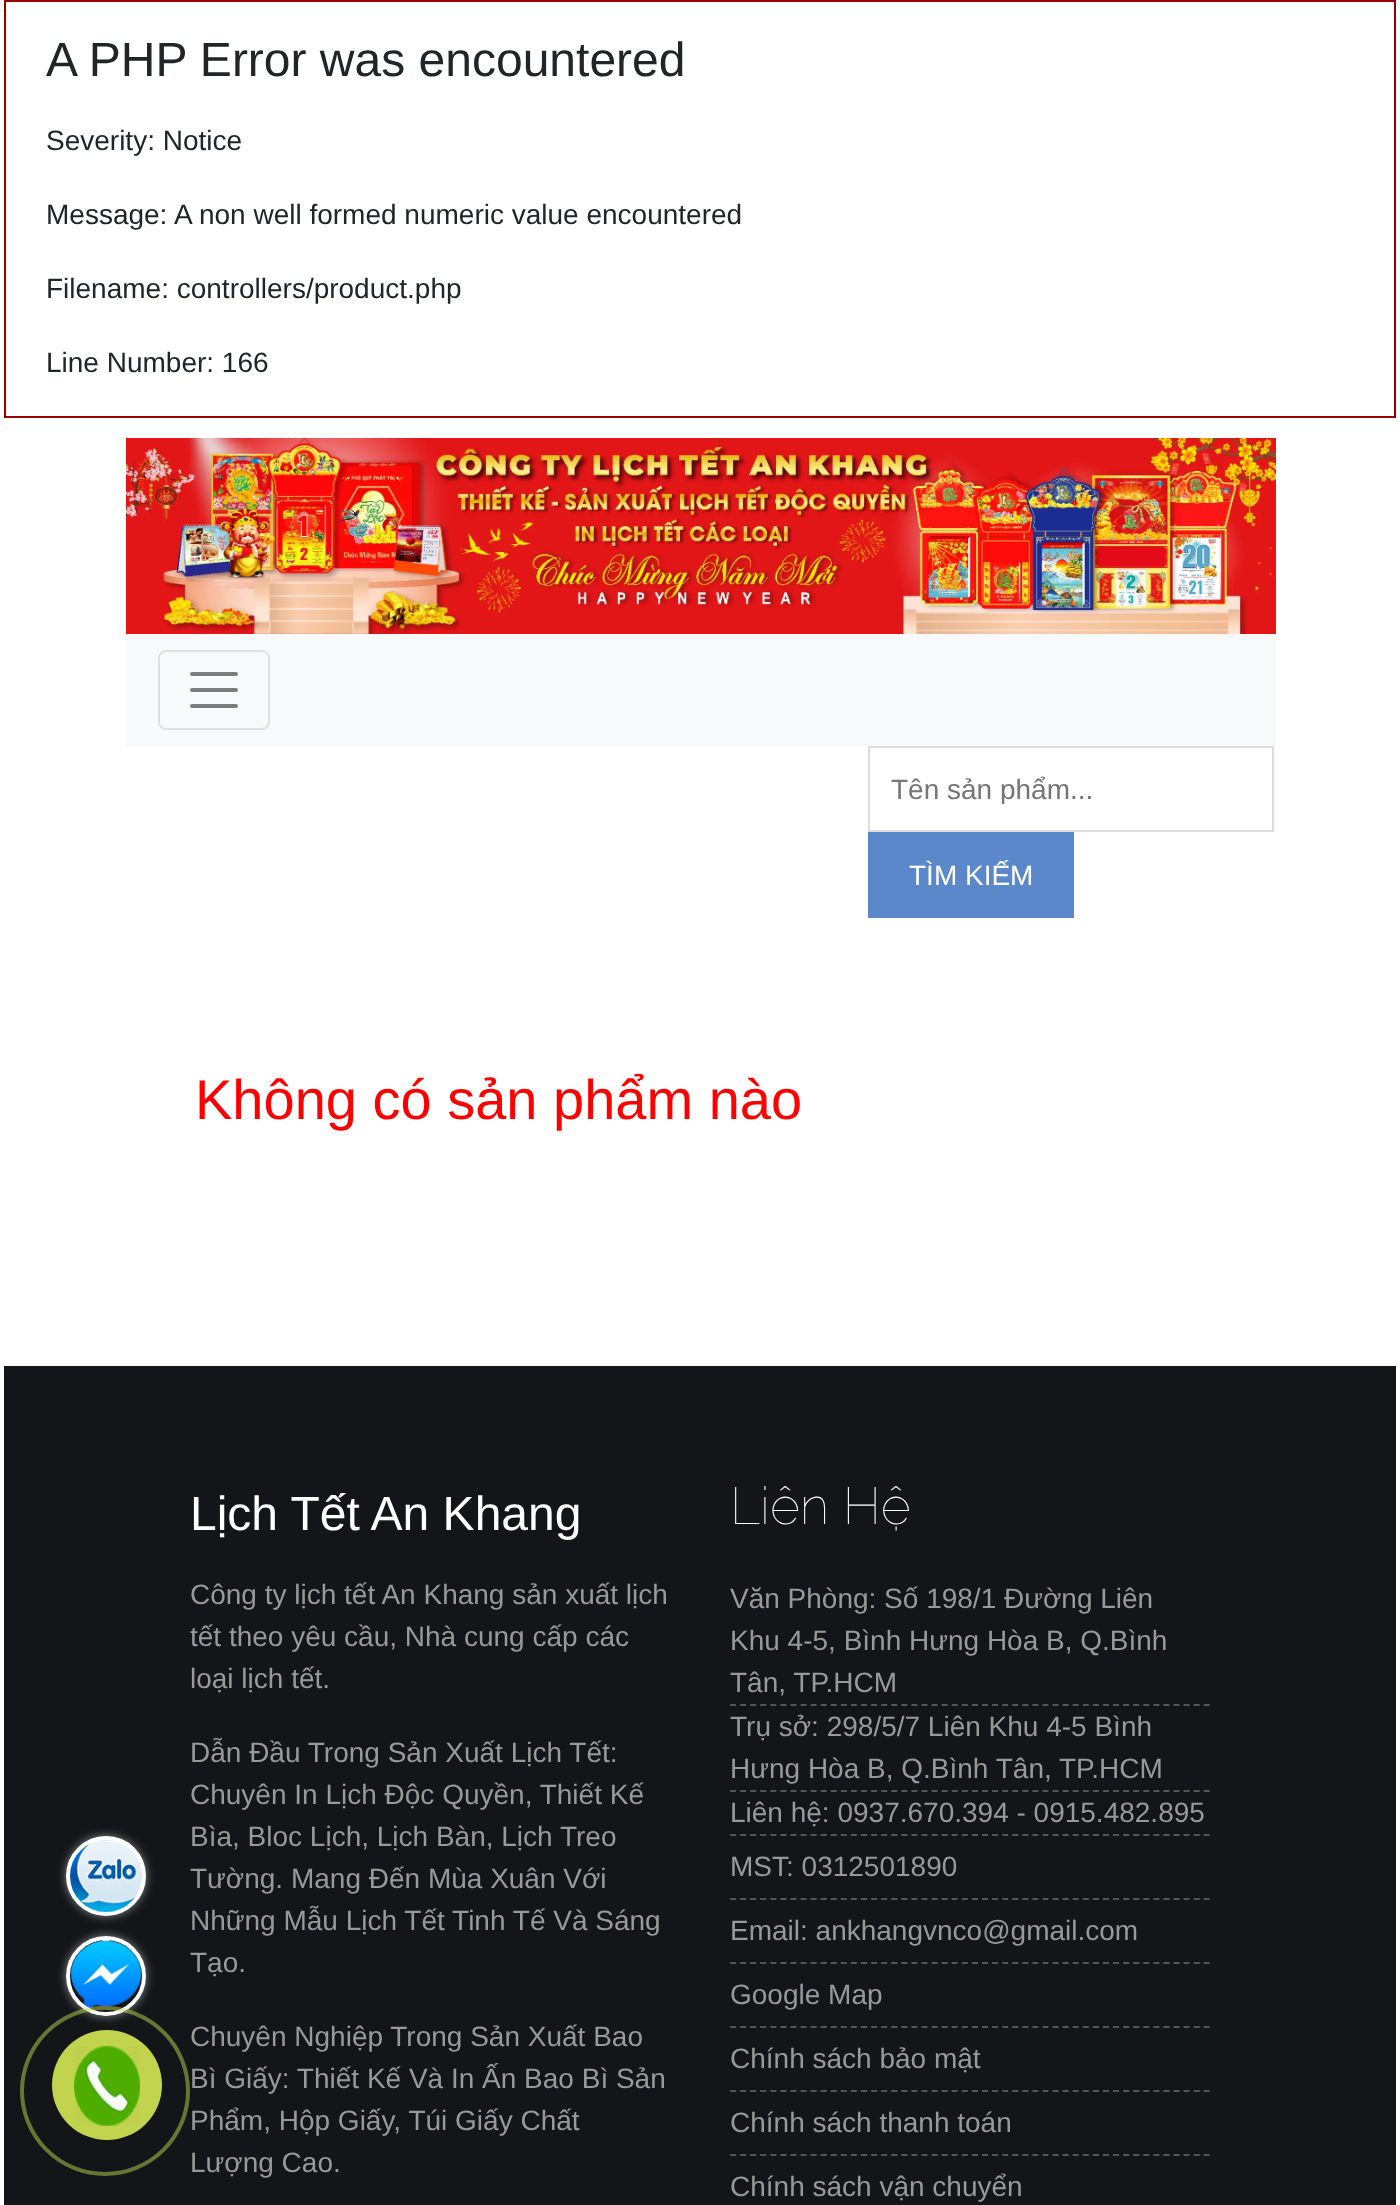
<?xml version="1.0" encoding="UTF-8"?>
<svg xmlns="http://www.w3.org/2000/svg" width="1400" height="2205">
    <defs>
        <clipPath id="clip1"><rect x="890" y="772" width="362" height="32"/></clipPath>
        <filter id="blur1" x="-50%" y="-200%" width="200%" height="500%"><feGaussianBlur stdDeviation="5"/></filter>
        <clipPath id="clip2"><path d="M 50 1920 H 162 V 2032 H 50 Z M 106 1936 C 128 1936 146 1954 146 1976 C 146 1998 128 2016 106 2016 C 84 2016 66 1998 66 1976 C 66 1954 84 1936 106 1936 Z" clip-rule="evenodd"/></clipPath>
    </defs>
    <rect width="100%" height="100%" fill="#FFFFFF"/>
    <rect x="5" y="1" width="1390" height="416" fill="none" stroke="#990000" stroke-width="2"/>
    <text x="46" y="76" font-family="Liberation Sans" font-size="48" fill="#212529">A PHP Error was encountered</text>
    <text x="46" y="150" font-family="Liberation Sans" font-size="28" fill="#212529">Severity: Notice</text>
    <text x="46" y="224" font-family="Liberation Sans" font-size="28" fill="#212529">Message:</text>
    <text x="174" y="224" font-family="Liberation Sans" font-size="28" fill="#212529">A non well formed numeric value encountered</text>
    <text x="46" y="298" font-family="Liberation Sans" font-size="28" fill="#212529">Filename: controllers/product.php</text>
    <text x="46" y="372" font-family="Liberation Sans" font-size="28" fill="#212529">Line Number: 166</text>
    <image x="126" y="438" width="1150" height="196" href="img_01.png"/>
    <rect x="126" y="634" width="1150" height="112" fill="#F8F9FA"/>
    <rect x="159" y="651" width="110" height="78" rx="7" fill="none" stroke="#DFE0E1" stroke-width="2"/>
    <path d="M 192 674 H 236 M 192 690 H 236 M 192 706 H 236" fill="none" stroke="#7C7D7D" stroke-width="4" stroke-linecap="round"/>
    <rect x="869" y="747" width="404" height="84" fill="none" stroke="#DDDDDD" stroke-width="2"/>
    <g clip-path="url(#clip1)">
        <text x="891" y="799" font-family="Liberation Sans" font-size="28" fill="#757575">Tên sản phẩm...</text>
    </g>
    <rect x="868" y="832" width="206" height="86" fill="#5A88CA"/>
    <text x="909" y="885" font-family="Liberation Sans" font-size="28" fill="#FFFFFF">TÌM KIẾM</text>
    <text x="195" y="1119" font-family="Liberation Sans" font-size="56" fill="#FF0000">Không có sản phẩm nào</text>
    <rect x="4" y="1366" width="1392" height="839" fill="#131519"/>
    <rect x="66" y="1836" width="80" height="80" rx="40" fill="#888888" filter="url(#blur1)"/>
    <image x="70" y="1840" width="72" height="72" href="img_02.png"/>
    <circle cx="106" cy="1876" r="38" fill="none" stroke="#FFFFFF" stroke-width="4"/>
    <g clip-path="url(#clip2)">
        <rect x="66" y="1936" width="80" height="80" rx="40" fill="#888888" filter="url(#blur1)"/>
    </g>
    <image x="71" y="1940" width="71" height="71" href="img_03.png"/>
    <circle cx="106" cy="1976" r="38" fill="none" stroke="#FFFFFF" stroke-width="4"/>
    <circle cx="105" cy="2091" r="83" fill="none" stroke="#C2D44E" stroke-opacity="0.5" stroke-width="4"/>
    <circle cx="107" cy="2085" r="55" fill="#C2D44E"/>
    <image x="74" y="2045" width="66" height="81" href="img_04.png"/>
    <text x="190" y="1530" font-family="Liberation Sans" font-size="48" fill="#FFFFFF">Lịch Tết An Khang</text>
    <text font-family="Liberation Sans" font-size="28" fill="#999999">
        <tspan x="190" y="1604">Công ty lịch tết An Khang sản xuất lịch</tspan>
        <tspan x="190" y="1646">tết theo yêu cầu, Nhà cung cấp các</tspan>
        <tspan x="190" y="1688">loại lịch tết.</tspan>
    </text>
    <text font-family="Liberation Sans" font-size="28" fill="#999999">
        <tspan x="190" y="1762">Dẫn Đầu Trong Sản Xuất Lịch Tết:</tspan>
        <tspan x="190" y="1804">Chuyên In Lịch Độc Quyền, Thiết Kế</tspan>
        <tspan x="190" y="1846">Bìa, Bloc Lịch, Lịch Bàn, Lịch Treo</tspan>
        <tspan x="190" y="1888">Tường. Mang Đến Mùa Xuân Với</tspan>
        <tspan x="190" y="1930">Những Mẫu Lịch Tết Tinh Tế Và Sáng</tspan>
        <tspan x="190" y="1972">Tạo.</tspan>
    </text>
    <text font-family="Liberation Sans" font-size="28" fill="#999999">
        <tspan x="190" y="2046">Chuyên Nghiệp Trong Sản Xuất Bao</tspan>
        <tspan x="190" y="2088">Bì Giấy: Thiết Kế Và In Ấn Bao Bì Sản</tspan>
        <tspan x="190" y="2130">Phẩm, Hộp Giấy, Túi Giấy Chất</tspan>
        <tspan x="190" y="2172">Lượng Cao.</tspan>
    </text>
    <text x="730" y="1524" font-family="Raleway" font-size="52" font-weight="100" fill="#FFFFFF">Liên Hệ</text>
    <path d="M 730 1705 H 1210" fill="none" stroke="#555555" stroke-width="2" stroke-dasharray="6 4.08"/>
    <text font-family="Liberation Sans" font-size="28" fill="#999999">
        <tspan x="730" y="1608">Văn Phòng: Số 198/1 Đường Liên</tspan>
        <tspan x="730" y="1650">Khu 4-5, Bình Hưng Hòa B, Q.Bình</tspan>
        <tspan x="730" y="1692">Tân, TP.HCM</tspan>
    </text>
    <path d="M 730 1791 H 1210" fill="none" stroke="#555555" stroke-width="2" stroke-dasharray="6 4.08"/>
    <text font-family="Liberation Sans" font-size="28" fill="#999999">
        <tspan x="730" y="1736">Trụ sở: 298/5/7 Liên Khu 4-5 Bình</tspan>
        <tspan x="730" y="1778">Hưng Hòa B, Q.Bình Tân, TP.HCM</tspan>
    </text>
    <path d="M 730 1835 H 1210" fill="none" stroke="#555555" stroke-width="2" stroke-dasharray="6 4.08"/>
    <text x="730" y="1822" font-family="Liberation Sans" font-size="28" fill="#999999">Liên hệ: 0937.670.394 - 0915.482.895</text>
    <path d="M 730 1899 H 1210" fill="none" stroke="#555555" stroke-width="2" stroke-dasharray="6 4.08"/>
    <text x="730" y="1876" font-family="Liberation Sans" font-size="28" fill="#999999">MST: 0312501890</text>
    <path d="M 730 1963 H 1210" fill="none" stroke="#555555" stroke-width="2" stroke-dasharray="6 4.08"/>
    <text x="730" y="1940" font-family="Liberation Sans" font-size="28" fill="#999999">Email: ankhangvnco@gmail.com</text>
    <path d="M 730 2027 H 1210" fill="none" stroke="#555555" stroke-width="2" stroke-dasharray="6 4.08"/>
    <text x="730" y="2004" font-family="Liberation Sans" font-size="28" fill="#999999">Google Map</text>
    <path d="M 730 2091 H 1210" fill="none" stroke="#555555" stroke-width="2" stroke-dasharray="6 4.08"/>
    <text x="730" y="2068" font-family="Liberation Sans" font-size="28" fill="#999999">Chính sách bảo mật</text>
    <path d="M 730 2155 H 1210" fill="none" stroke="#555555" stroke-width="2" stroke-dasharray="6 4.08"/>
    <text x="730" y="2132" font-family="Liberation Sans" font-size="28" fill="#999999">Chính sách thanh toán</text>
    <text x="730" y="2196" font-family="Liberation Sans" font-size="28" fill="#999999">Chính sách vận chuyển</text>
</svg>
